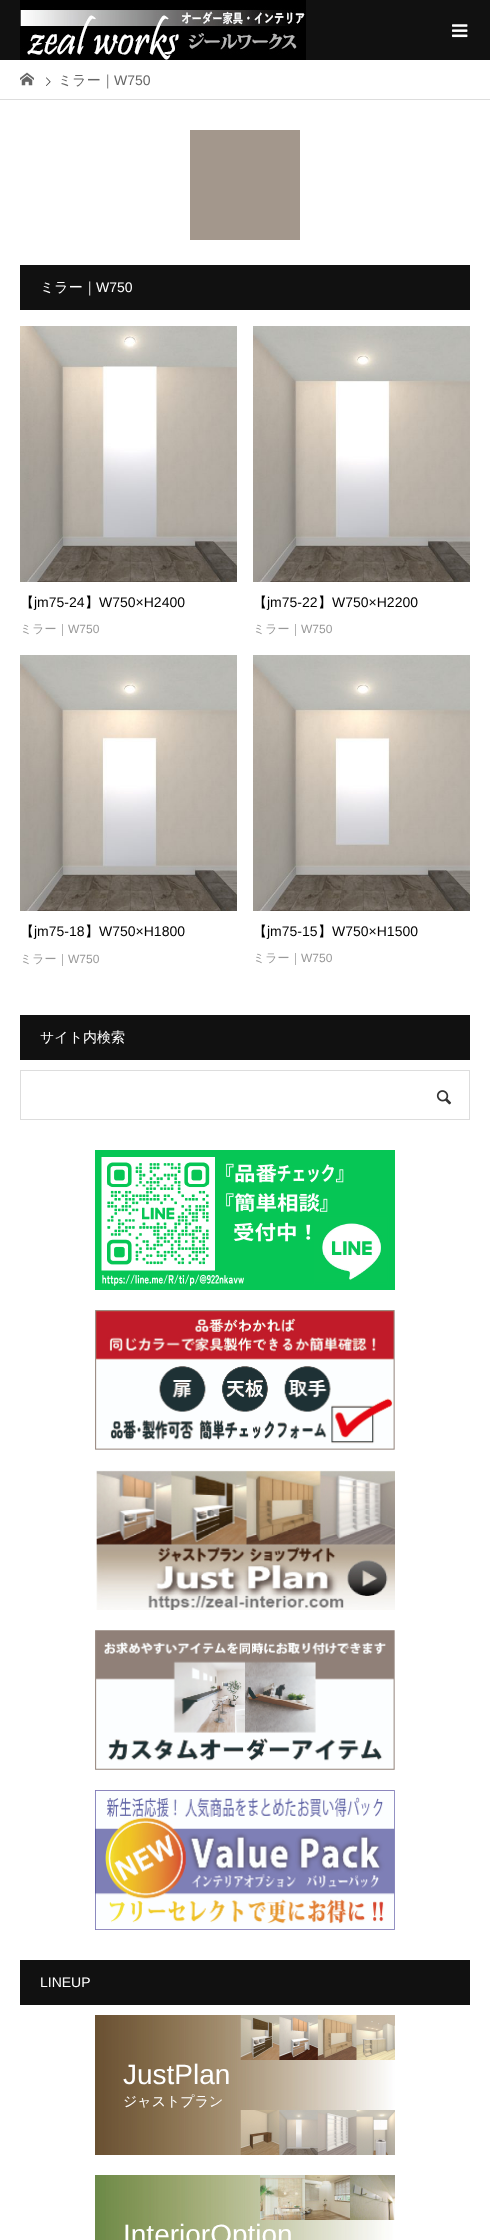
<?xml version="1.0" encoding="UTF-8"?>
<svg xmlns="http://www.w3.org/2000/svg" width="490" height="2240">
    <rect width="100%" height="100%" fill="#FFFFFF"/>
    <rect x="0" y="0" width="490" height="60" fill="#111111"/>
    <image x="20" y="0" width="286" height="60" href="img_01.png"/>
    <image x="452" y="24" width="16" height="14" href="img_02.png"/>
    <rect x="0" y="99" width="490" height="1" fill="#DDDDDD"/>
    <image x="20" y="72" width="14" height="14" href="img_03.png"/>
    <image x="46" y="77" width="5" height="9" href="img_04.png"/>
    <text x="58" y="85" font-family="WenQuanYi Zen Hei" font-size="14" font-weight="500" fill="#666666">ミラー｜</text>
    <text x="114" y="85" font-family="Liberation Sans" font-size="14" fill="#666666">W750</text>
    <rect x="190" y="130" width="110" height="110" fill="#A3978C"/>
    <rect x="20" y="265" width="450" height="45" fill="#111111"/>
    <text x="40" y="292" font-family="WenQuanYi Zen Hei" font-size="14" font-weight="500" fill="#FFFFFF">ミラー｜</text>
    <text x="96" y="292" font-family="Liberation Sans" font-size="14" fill="#FFFFFF">W750</text>
    <image x="20" y="326" width="217" height="256" href="img_05.png"/>
    <text x="20" y="607" font-family="WenQuanYi Zen Hei" font-size="14" font-weight="500" fill="#000000">【</text>
    <text x="34" y="607" font-family="Liberation Sans" font-size="14" fill="#000000">jm75-24</text>
    <text x="85" y="607" font-family="WenQuanYi Zen Hei" font-size="14" font-weight="500" fill="#000000">】</text>
    <text x="99" y="607" font-family="Liberation Sans" font-size="14" fill="#000000">W750×H2400</text>
    <text x="20" y="633" font-family="WenQuanYi Zen Hei" font-size="12" font-weight="500" fill="#999999">ミラー｜</text>
    <text x="68" y="633" font-family="Liberation Sans" font-size="12" fill="#999999">W750</text>
    <image x="253" y="326" width="217" height="256" href="img_06.png"/>
    <text x="253" y="607" font-family="WenQuanYi Zen Hei" font-size="14" font-weight="500" fill="#000000">【</text>
    <text x="267" y="607" font-family="Liberation Sans" font-size="14" fill="#000000">jm75-22</text>
    <text x="318" y="607" font-family="WenQuanYi Zen Hei" font-size="14" font-weight="500" fill="#000000">】</text>
    <text x="332" y="607" font-family="Liberation Sans" font-size="14" fill="#000000">W750×H2200</text>
    <text x="253" y="633" font-family="WenQuanYi Zen Hei" font-size="12" font-weight="500" fill="#999999">ミラー｜</text>
    <text x="301" y="633" font-family="Liberation Sans" font-size="12" fill="#999999">W750</text>
    <image x="20" y="655" width="217" height="256" href="img_07.png"/>
    <text x="20" y="936" font-family="WenQuanYi Zen Hei" font-size="14" font-weight="500" fill="#000000">【</text>
    <text x="34" y="936" font-family="Liberation Sans" font-size="14" fill="#000000">jm75-18</text>
    <text x="85" y="936" font-family="WenQuanYi Zen Hei" font-size="14" font-weight="500" fill="#000000">】</text>
    <text x="99" y="936" font-family="Liberation Sans" font-size="14" fill="#000000">W750×H1800</text>
    <text x="20" y="963" font-family="WenQuanYi Zen Hei" font-size="12" font-weight="500" fill="#999999">ミラー｜</text>
    <text x="68" y="963" font-family="Liberation Sans" font-size="12" fill="#999999">W750</text>
    <image x="253" y="655" width="217" height="256" href="img_08.png"/>
    <text x="253" y="936" font-family="WenQuanYi Zen Hei" font-size="14" font-weight="500" fill="#000000">【</text>
    <text x="267" y="936" font-family="Liberation Sans" font-size="14" fill="#000000">jm75-15</text>
    <text x="318" y="936" font-family="WenQuanYi Zen Hei" font-size="14" font-weight="500" fill="#000000">】</text>
    <text x="332" y="936" font-family="Liberation Sans" font-size="14" fill="#000000">W750×H1500</text>
    <text x="253" y="962" font-family="WenQuanYi Zen Hei" font-size="12" font-weight="500" fill="#999999">ミラー｜</text>
    <text x="301" y="962" font-family="Liberation Sans" font-size="12" fill="#999999">W750</text>
    <rect x="20" y="1015" width="450" height="45" fill="#111111"/>
    <text x="40" y="1042" font-family="WenQuanYi Zen Hei" font-size="14" font-weight="500" fill="#FFFFFF">サイト内検索</text>
    <rect x="20.5" y="1070.5" width="449" height="49" fill="none" stroke="#DDDDDD"/>
    <image x="436" y="1090" width="16" height="15" href="img_09.png"/>
    <image x="95" y="1150" width="300" height="140" href="img_10.png"/>
    <image x="95" y="1310" width="300" height="140" href="img_11.png"/>
    <image x="96" y="1470" width="299" height="140" href="img_12.png"/>
    <image x="95" y="1630" width="300" height="140" href="img_13.png"/>
    <image x="95" y="1790" width="300" height="140" href="img_14.png"/>
    <rect x="20" y="1960" width="450" height="45" fill="#111111"/>
    <text x="40" y="1987" font-family="Liberation Sans" font-size="14" fill="#FFFFFF">LINEUP</text>
    <image x="95" y="2015" width="300" height="140" href="img_15.png"/>
    <text x="123" y="2084" font-family="Liberation Sans" font-size="28" fill="#FFFFFF">JustPlan</text>
    <text x="123" y="2106" font-family="WenQuanYi Zen Hei" font-size="14" font-weight="500" fill="#FFFFFF">ジャストプラン</text>
    <image x="95" y="2175" width="300" height="65" href="img_16.png"/>
    <text x="123" y="2244" font-family="Liberation Sans" font-size="28" fill="#FFFFFF">InteriorOption</text>
</svg>
